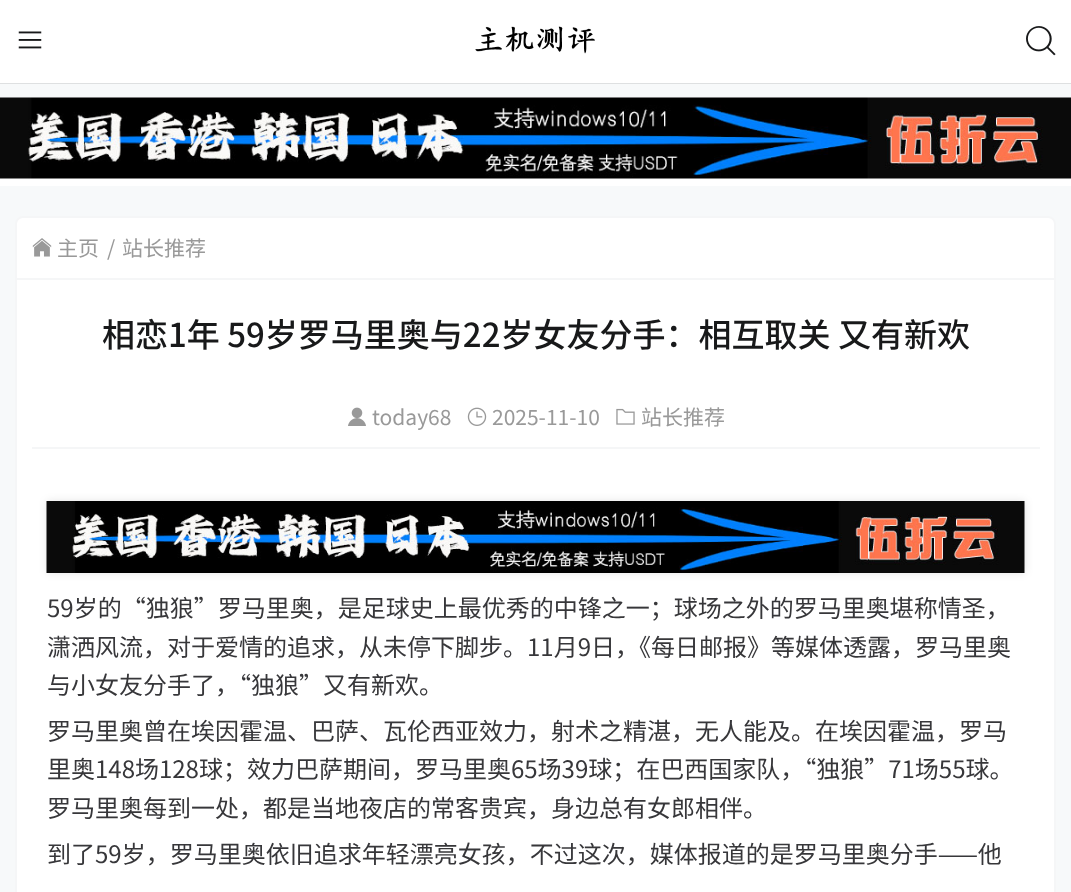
<?xml version="1.0" encoding="UTF-8"?>
<svg xmlns="http://www.w3.org/2000/svg" width="1071" height="892">
    <defs>
        <filter id="blur1" x="-50%" y="-200%" width="200%" height="500%"><feGaussianBlur stdDeviation="0.5"/></filter>
        <filter id="blur2" x="-50%" y="-200%" width="200%" height="500%"><feGaussianBlur stdDeviation="4"/></filter>
    </defs>
    <rect width="100%" height="100%" fill="#F7F9FA"/>
    <rect x="0" y="0" width="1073" height="84" fill="#000000" fill-opacity="0.1" filter="url(#blur1)"/>
    <rect x="0" y="0" width="1071" height="83" fill="#FFFFFF"/>
    <image x="18" y="31" width="24" height="18" href="img_01.png"/>
    <image x="475" y="26" width="120" height="28" href="img_02.png"/>
    <image x="1026" y="26" width="30" height="30" href="img_03.png"/>
    <rect x="0" y="178" width="1071" height="8" fill="#FFFFFF"/>
    <image x="0" y="97" width="1071" height="82" href="img_04.png"/>
    <rect x="16" y="217" width="1039" height="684" rx="7" fill="#FFFFFF" stroke="#F5F6F7" stroke-width="2"/>
    <rect x="17" y="278" width="1038" height="2" fill="#F5F6F7"/>
    <image x="32" y="238" width="20" height="19" href="img_05.png"/>
    <text x="57" y="256" font-family="Noto Sans CJK SC" font-size="21" fill="#999999">主页</text>
    <text x="107" y="256" font-family="Noto Sans CJK SC" font-size="21" fill="#999999">/</text>
    <text x="122" y="256" font-family="Noto Sans CJK SC" font-size="21" fill="#999999">站长推荐</text>
    <text x="102" y="347" font-family="Noto Sans CJK SC" font-size="33" font-weight="500" fill="#18191A">相恋1年 59岁罗马里奥与22岁女友分手：相互取关 又有新欢</text>
    <rect x="32" y="447" width="1008" height="2" fill="#F5F6F7"/>
    <image x="348" y="407" width="18" height="19" href="img_06.png"/>
    <text x="372" y="425" font-family="Noto Sans CJK SC" font-size="21" fill="#999999">today68</text>
    <image x="467" y="407" width="20" height="19" href="img_07.png"/>
    <text x="492" y="425" font-family="Noto Sans CJK SC" font-size="21" fill="#999999">2025-11-10</text>
    <image x="616" y="408" width="19" height="17" href="img_08.png"/>
    <text x="641" y="425" font-family="Noto Sans CJK SC" font-size="21" fill="#999999">站长推荐</text>
    <rect x="47" y="501" width="978" height="72" fill="#000000" fill-opacity="0.1" filter="url(#blur2)"/>
    <image x="46" y="501" width="979" height="72" href="img_09.png"/>
    <text font-family="Noto Sans CJK SC" font-size="24" fill="#37373A">
        <tspan x="47" y="617">59岁的“独狼”罗马里奥，是足球史上最优秀的中锋之一；球场之外的罗马里奥堪称情圣，</tspan>
        <tspan x="47" y="656">潇洒风流，对于爱情的追求，从未停下脚步。11月9日，《每日邮报》等媒体透露，罗马里奥</tspan>
        <tspan x="47" y="694">与小女友分手了，“独狼”又有新欢。</tspan>
        <tspan x="47" y="740">罗马里奥曾在埃因霍温、巴萨、瓦伦西亚效力，射术之精湛，无人能及。在埃因霍温，罗马</tspan>
        <tspan x="47" y="778">里奥148场128球；效力巴萨期间，罗马里奥65场39球；在巴西国家队，“独狼”71场55球。</tspan>
        <tspan x="47" y="817">罗马里奥每到一处，都是当地夜店的常客贵宾，身边总有女郎相伴。</tspan>
        <tspan x="47" y="863">到了59岁，罗马里奥依旧追求年轻漂亮女孩，不过这次，媒体报道的是罗马里奥分手——他</tspan>
    </text>
</svg>
